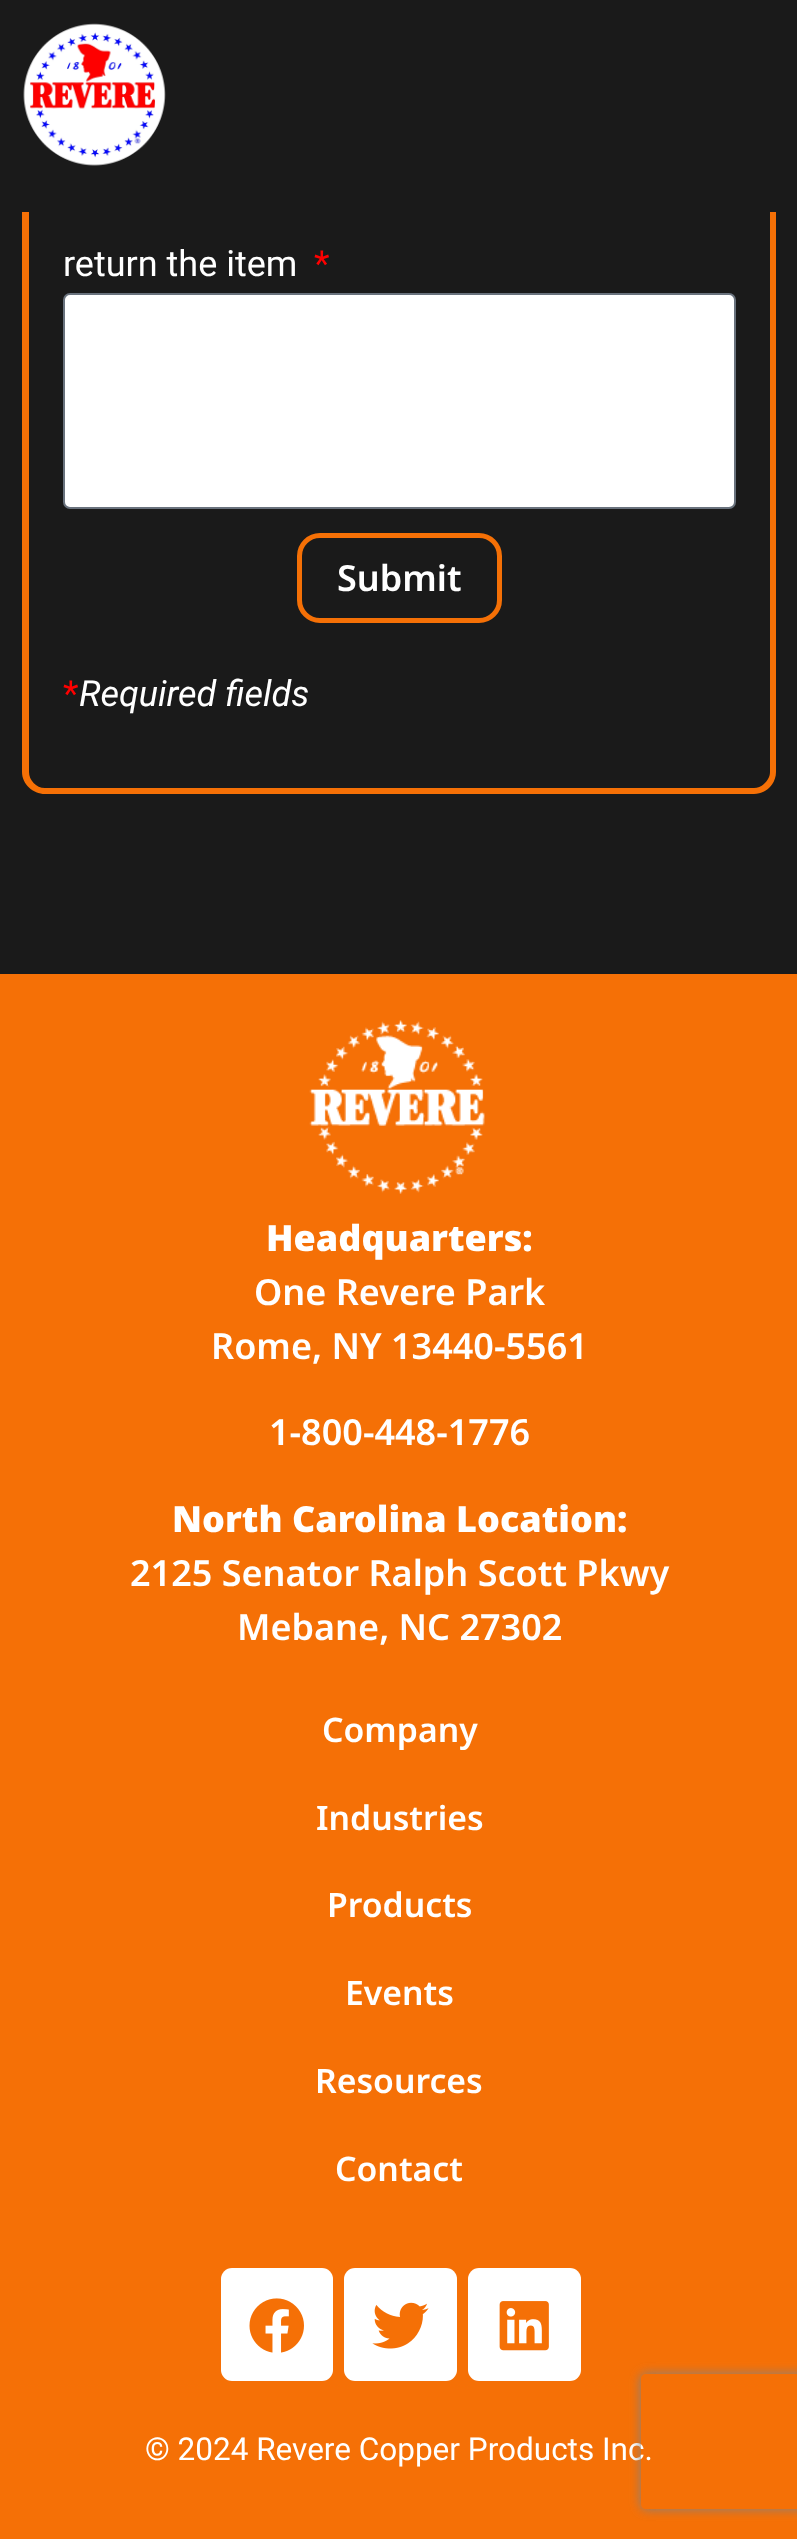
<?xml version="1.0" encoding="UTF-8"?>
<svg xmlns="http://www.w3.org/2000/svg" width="797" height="2539">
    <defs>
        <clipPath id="clip1"><path d="M 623 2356 H 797 V 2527 H 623 Z M 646 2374 H 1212 C 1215 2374 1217 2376 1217 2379 V 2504 C 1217 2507 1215 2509 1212 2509 H 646 C 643 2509 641 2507 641 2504 V 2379 C 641 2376 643 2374 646 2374 Z" clip-rule="evenodd"/></clipPath>
        <filter id="blur1" x="-50%" y="-200%" width="200%" height="500%"><feGaussianBlur stdDeviation="5.5"/></filter>
    </defs>
    <rect width="100%" height="100%" fill="#1A1A1A"/>
    <path d="M 22 -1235 H 776 V 772 C 776 784 766 794 754 794 H 45 C 33 794 22 784 22 772 Z M 29 -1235 H 770 V 772 C 770 780 762 788 754 788 H 45 C 36 788 29 780 29 772 Z" fill="#F57006" fill-rule="evenodd"/>
    <rect x="22" y="0" width="754" height="212" fill="#1A1A1A"/>
    <image x="23" y="23" width="143" height="143" href="img_01.png"/>
    <text x="63" y="276" font-family="Roboto" font-size="36" fill="#FFFFFF">return the item</text>
    <text x="314" y="276" font-family="Roboto" font-size="36" fill="#FF0000">*</text>
    <rect x="64" y="294" width="671" height="214" rx="6" fill="#FFFFFF" stroke="#69727D" stroke-width="2"/>
    <rect x="299.5" y="535.5" width="200" height="85" rx="20.5" fill="none" stroke="#F57006" stroke-width="5"/>
    <text x="337" y="591" font-family="Noto Sans" font-size="36" font-weight="600" fill="#FFFFFF">Submit</text>
    <text x="63" y="706" font-family="Roboto" font-size="36" fill="#FF0000">*</text>
    <text x="79" y="706" font-family="Roboto" font-size="36" font-style="italic" fill="#FFFFFF">Required fields</text>
    <rect x="0" y="974" width="797" height="1565" fill="#F57006"/>
    <image x="309" y="1020" width="176" height="174" href="img_02.png"/>
    <text x="266" y="1251" font-family="Noto Sans" font-size="36" font-weight="900" fill="#FFFFFF">Headquarters:</text>
    <text x="254" y="1305" font-family="Noto Sans" font-size="36" font-weight="600" fill="#FFFFFF">One Revere Park</text>
    <text x="211" y="1359" font-family="Noto Sans" font-size="36" font-weight="600" fill="#FFFFFF">Rome, NY 13440-5561</text>
    <text x="269" y="1445" font-family="Noto Sans" font-size="36" font-weight="600" fill="#FFFFFF">1-800-448-1776</text>
    <text x="172" y="1532" font-family="Noto Sans" font-size="36" font-weight="900" fill="#FFFFFF">North Carolina Location:</text>
    <text x="130" y="1586" font-family="Noto Sans" font-size="36" font-weight="600" fill="#FFFFFF">2125 Senator Ralph Scott Pkwy</text>
    <text x="237" y="1640" font-family="Noto Sans" font-size="36" font-weight="600" fill="#FFFFFF">Mebane, NC 27302</text>
    <text x="322" y="1742" font-family="Noto Sans" font-size="33.75" font-weight="600" fill="#FFFFFF">Company</text>
    <text x="316" y="1830" font-family="Noto Sans" font-size="33.75" font-weight="600" fill="#FFFFFF">Industries</text>
    <text x="327" y="1917" font-family="Noto Sans" font-size="33.75" font-weight="600" fill="#FFFFFF">Products</text>
    <text x="345" y="2005" font-family="Noto Sans" font-size="33.75" font-weight="600" fill="#FFFFFF">Events</text>
    <text x="315" y="2093" font-family="Noto Sans" font-size="33.75" font-weight="600" fill="#FFFFFF">Resources</text>
    <text x="335" y="2181" font-family="Noto Sans" font-size="33.75" font-weight="600" fill="#FFFFFF">Contact</text>
    <rect x="221" y="2268" width="112" height="113" rx="11" fill="#FFFFFF"/>
    <image x="249" y="2298" width="55" height="55" href="img_03.png"/>
    <rect x="344" y="2268" width="113" height="113" rx="11" fill="#FFFFFF"/>
    <image x="372" y="2302" width="57" height="47" href="img_04.png"/>
    <rect x="468" y="2268" width="113" height="113" rx="11" fill="#FFFFFF"/>
    <image x="499" y="2301" width="50" height="50" href="img_05.png"/>
    <text x="145" y="2460" font-family="Roboto" font-size="31.5" fill="#FFFFFF">© 2024 Revere Copper Products Inc.</text>
    <g clip-path="url(#clip1)">
        <rect x="641" y="2374" width="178" height="135" rx="5" fill="#808080" filter="url(#blur1)"/>
    </g>
</svg>
